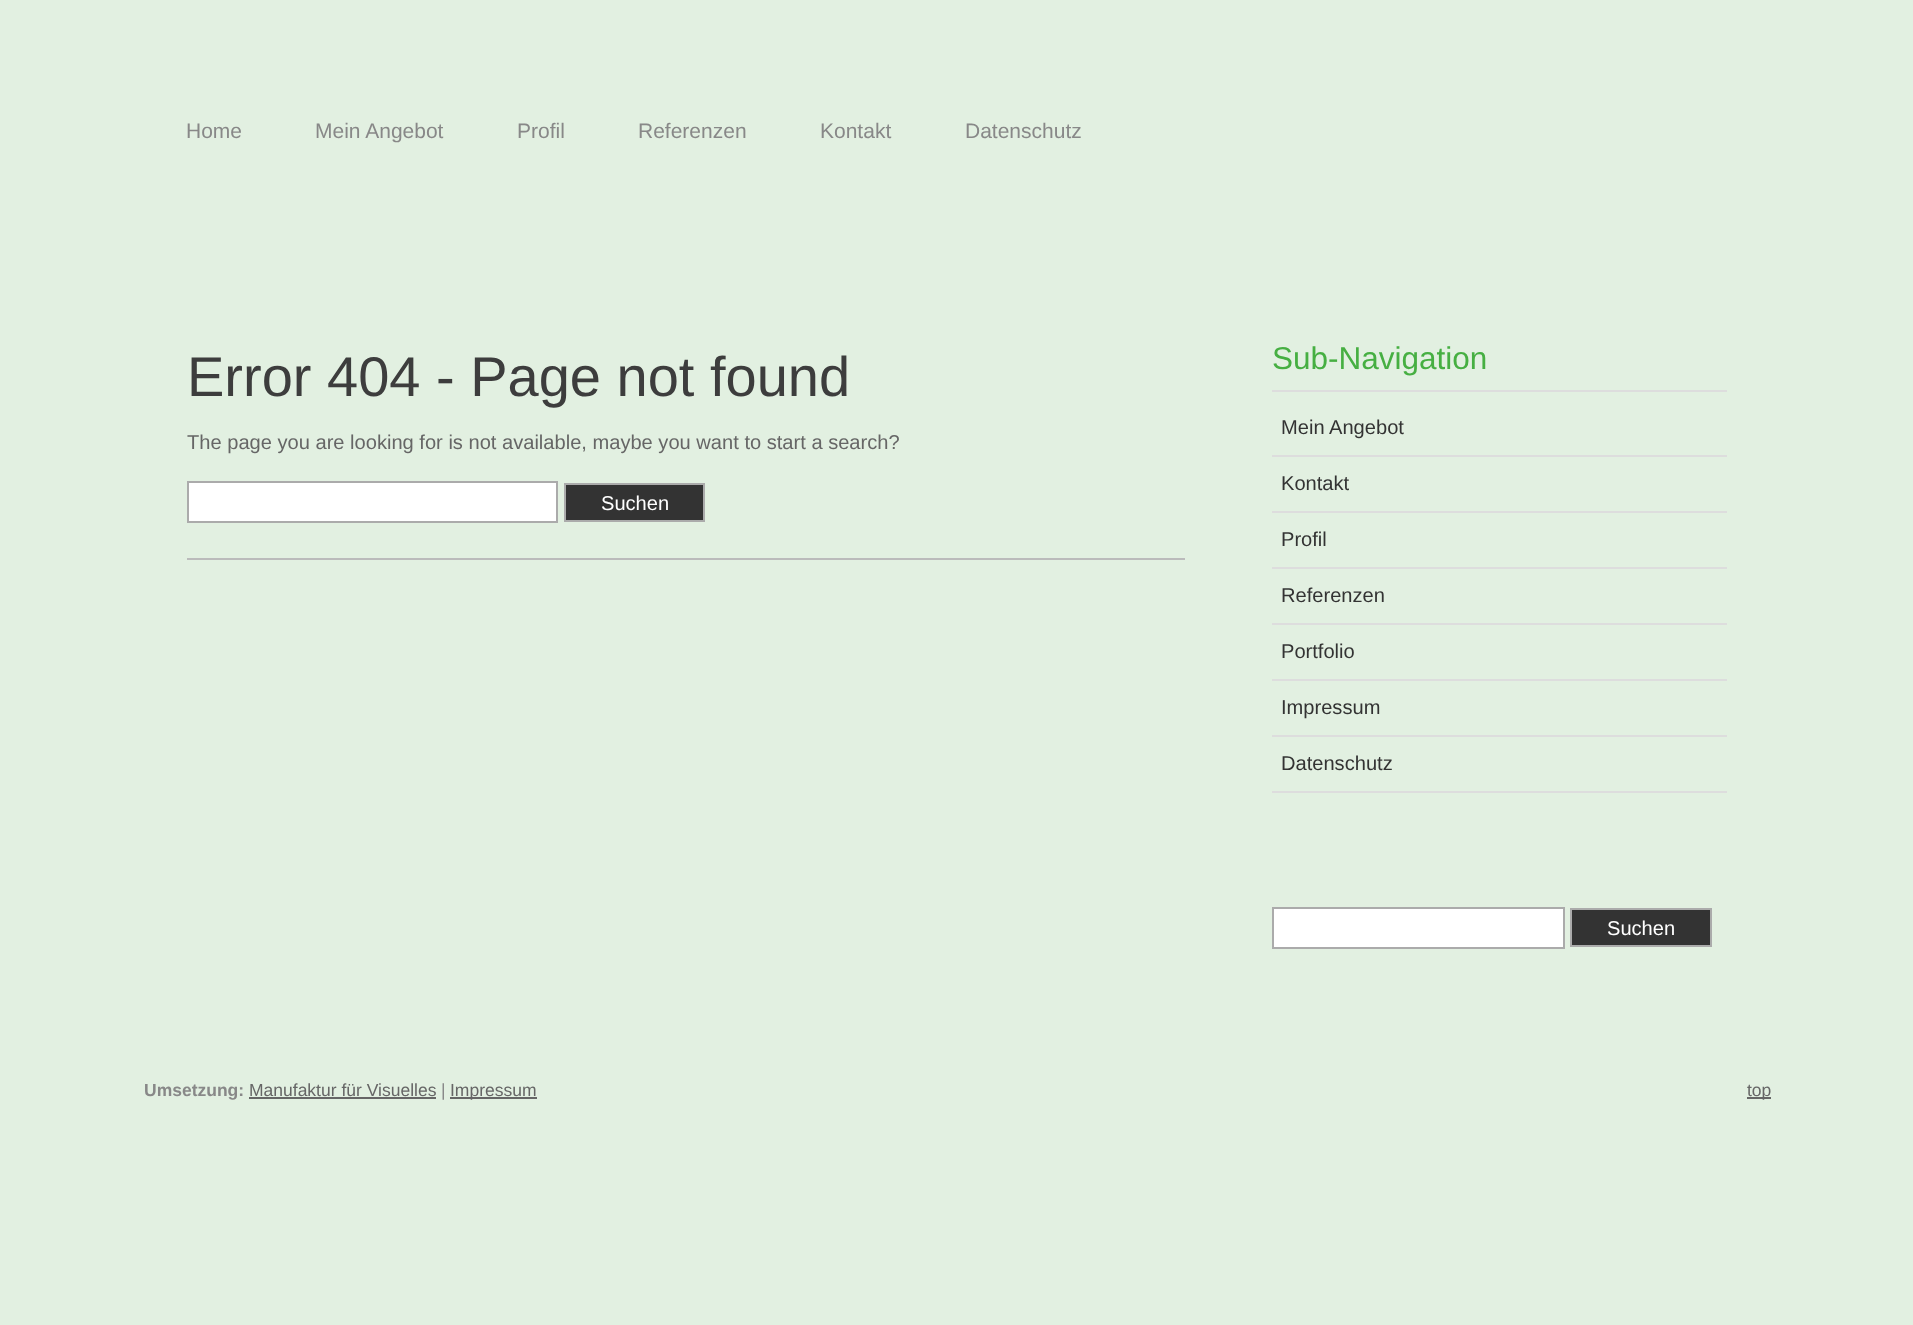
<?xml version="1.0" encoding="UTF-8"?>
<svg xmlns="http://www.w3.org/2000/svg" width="1913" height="1325">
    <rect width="100%" height="100%" fill="#E2F0E1"/>
    <text x="186" y="138" font-family="Liberation Sans" font-size="21" fill="#888888">Home</text>
    <text x="315" y="138" font-family="Liberation Sans" font-size="21" fill="#888888">Mein Angebot</text>
    <text x="517" y="138" font-family="Liberation Sans" font-size="21" fill="#888888">Profil</text>
    <text x="638" y="138" font-family="Liberation Sans" font-size="21" fill="#888888">Referenzen</text>
    <text x="820" y="138" font-family="Liberation Sans" font-size="21" fill="#888888">Kontakt</text>
    <text x="965" y="138" font-family="Liberation Sans" font-size="21" fill="#888888">Datenschutz</text>
    <rect x="187" y="558" width="998" height="2" fill="#BBBBBB"/>
    <text x="187" y="396" font-family="Liberation Sans" font-size="56" fill="#3D3D3D">Error 404 - Page not found</text>
    <text x="187" y="449" font-family="Liberation Sans" font-size="20.1" fill="#666666">The page you are looking for is not available, maybe you want to start a search?</text>
    <rect x="188" y="482" width="369" height="40" fill="#FFFFFF" stroke="#ABABAB" stroke-width="2"/>
    <rect x="565" y="484" width="139" height="37" fill="#333333" stroke="#ABABAB" stroke-width="2"/>
    <text x="601" y="510" font-family="Liberation Sans" font-size="20.1" fill="#FFFFFF">Suchen</text>
    <rect x="1272" y="390" width="455" height="2" fill="#DDDDDD"/>
    <text x="1272" y="369" font-family="Liberation Sans" font-size="31.5" fill="#46AF42">Sub-Navigation</text>
    <rect x="1272" y="455" width="455" height="2" fill="#DDDDDD"/>
    <text x="1281" y="434" font-family="Liberation Sans" font-size="20.1" fill="#333333">Mein Angebot</text>
    <rect x="1272" y="511" width="455" height="2" fill="#DDDDDD"/>
    <text x="1281" y="490" font-family="Liberation Sans" font-size="20.1" fill="#333333">Kontakt</text>
    <rect x="1272" y="567" width="455" height="2" fill="#DDDDDD"/>
    <text x="1281" y="546" font-family="Liberation Sans" font-size="20.1" fill="#333333">Profil</text>
    <rect x="1272" y="623" width="455" height="2" fill="#DDDDDD"/>
    <text x="1281" y="602" font-family="Liberation Sans" font-size="20.1" fill="#333333">Referenzen</text>
    <rect x="1272" y="679" width="455" height="2" fill="#DDDDDD"/>
    <text x="1281" y="658" font-family="Liberation Sans" font-size="20.1" fill="#333333">Portfolio</text>
    <rect x="1272" y="735" width="455" height="2" fill="#DDDDDD"/>
    <text x="1281" y="714" font-family="Liberation Sans" font-size="20.1" fill="#333333">Impressum</text>
    <rect x="1272" y="791" width="455" height="2" fill="#DDDDDD"/>
    <text x="1281" y="770" font-family="Liberation Sans" font-size="20.1" fill="#333333">Datenschutz</text>
    <rect x="1273" y="908" width="291" height="40" fill="#FFFFFF" stroke="#ABABAB" stroke-width="2"/>
    <rect x="1571" y="909" width="140" height="37" fill="#333333" stroke="#ABABAB" stroke-width="2"/>
    <text x="1607" y="935" font-family="Liberation Sans" font-size="20.1" fill="#FFFFFF">Suchen</text>
    <text x="144" y="1096" font-family="Liberation Sans" font-size="17.5" font-weight="700" fill="#888888">Umsetzung:</text>
    <text x="249" y="1096" font-family="Liberation Sans" font-size="17.5" fill="#666666">Manufaktur für Visuelles</text>
    <rect x="249" y="1097" width="187" height="2" fill="#666666"/>
    <text x="441" y="1096" font-family="Liberation Sans" font-size="17.5" fill="#888888">|</text>
    <rect x="450" y="1097" width="87" height="2" fill="#666666"/>
    <text x="450" y="1096" font-family="Liberation Sans" font-size="17.5" fill="#666666">Impressum</text>
    <rect x="1747" y="1097" width="24" height="2" fill="#666666"/>
    <text x="1747" y="1096" font-family="Liberation Sans" font-size="17.5" fill="#666666">top</text>
</svg>
